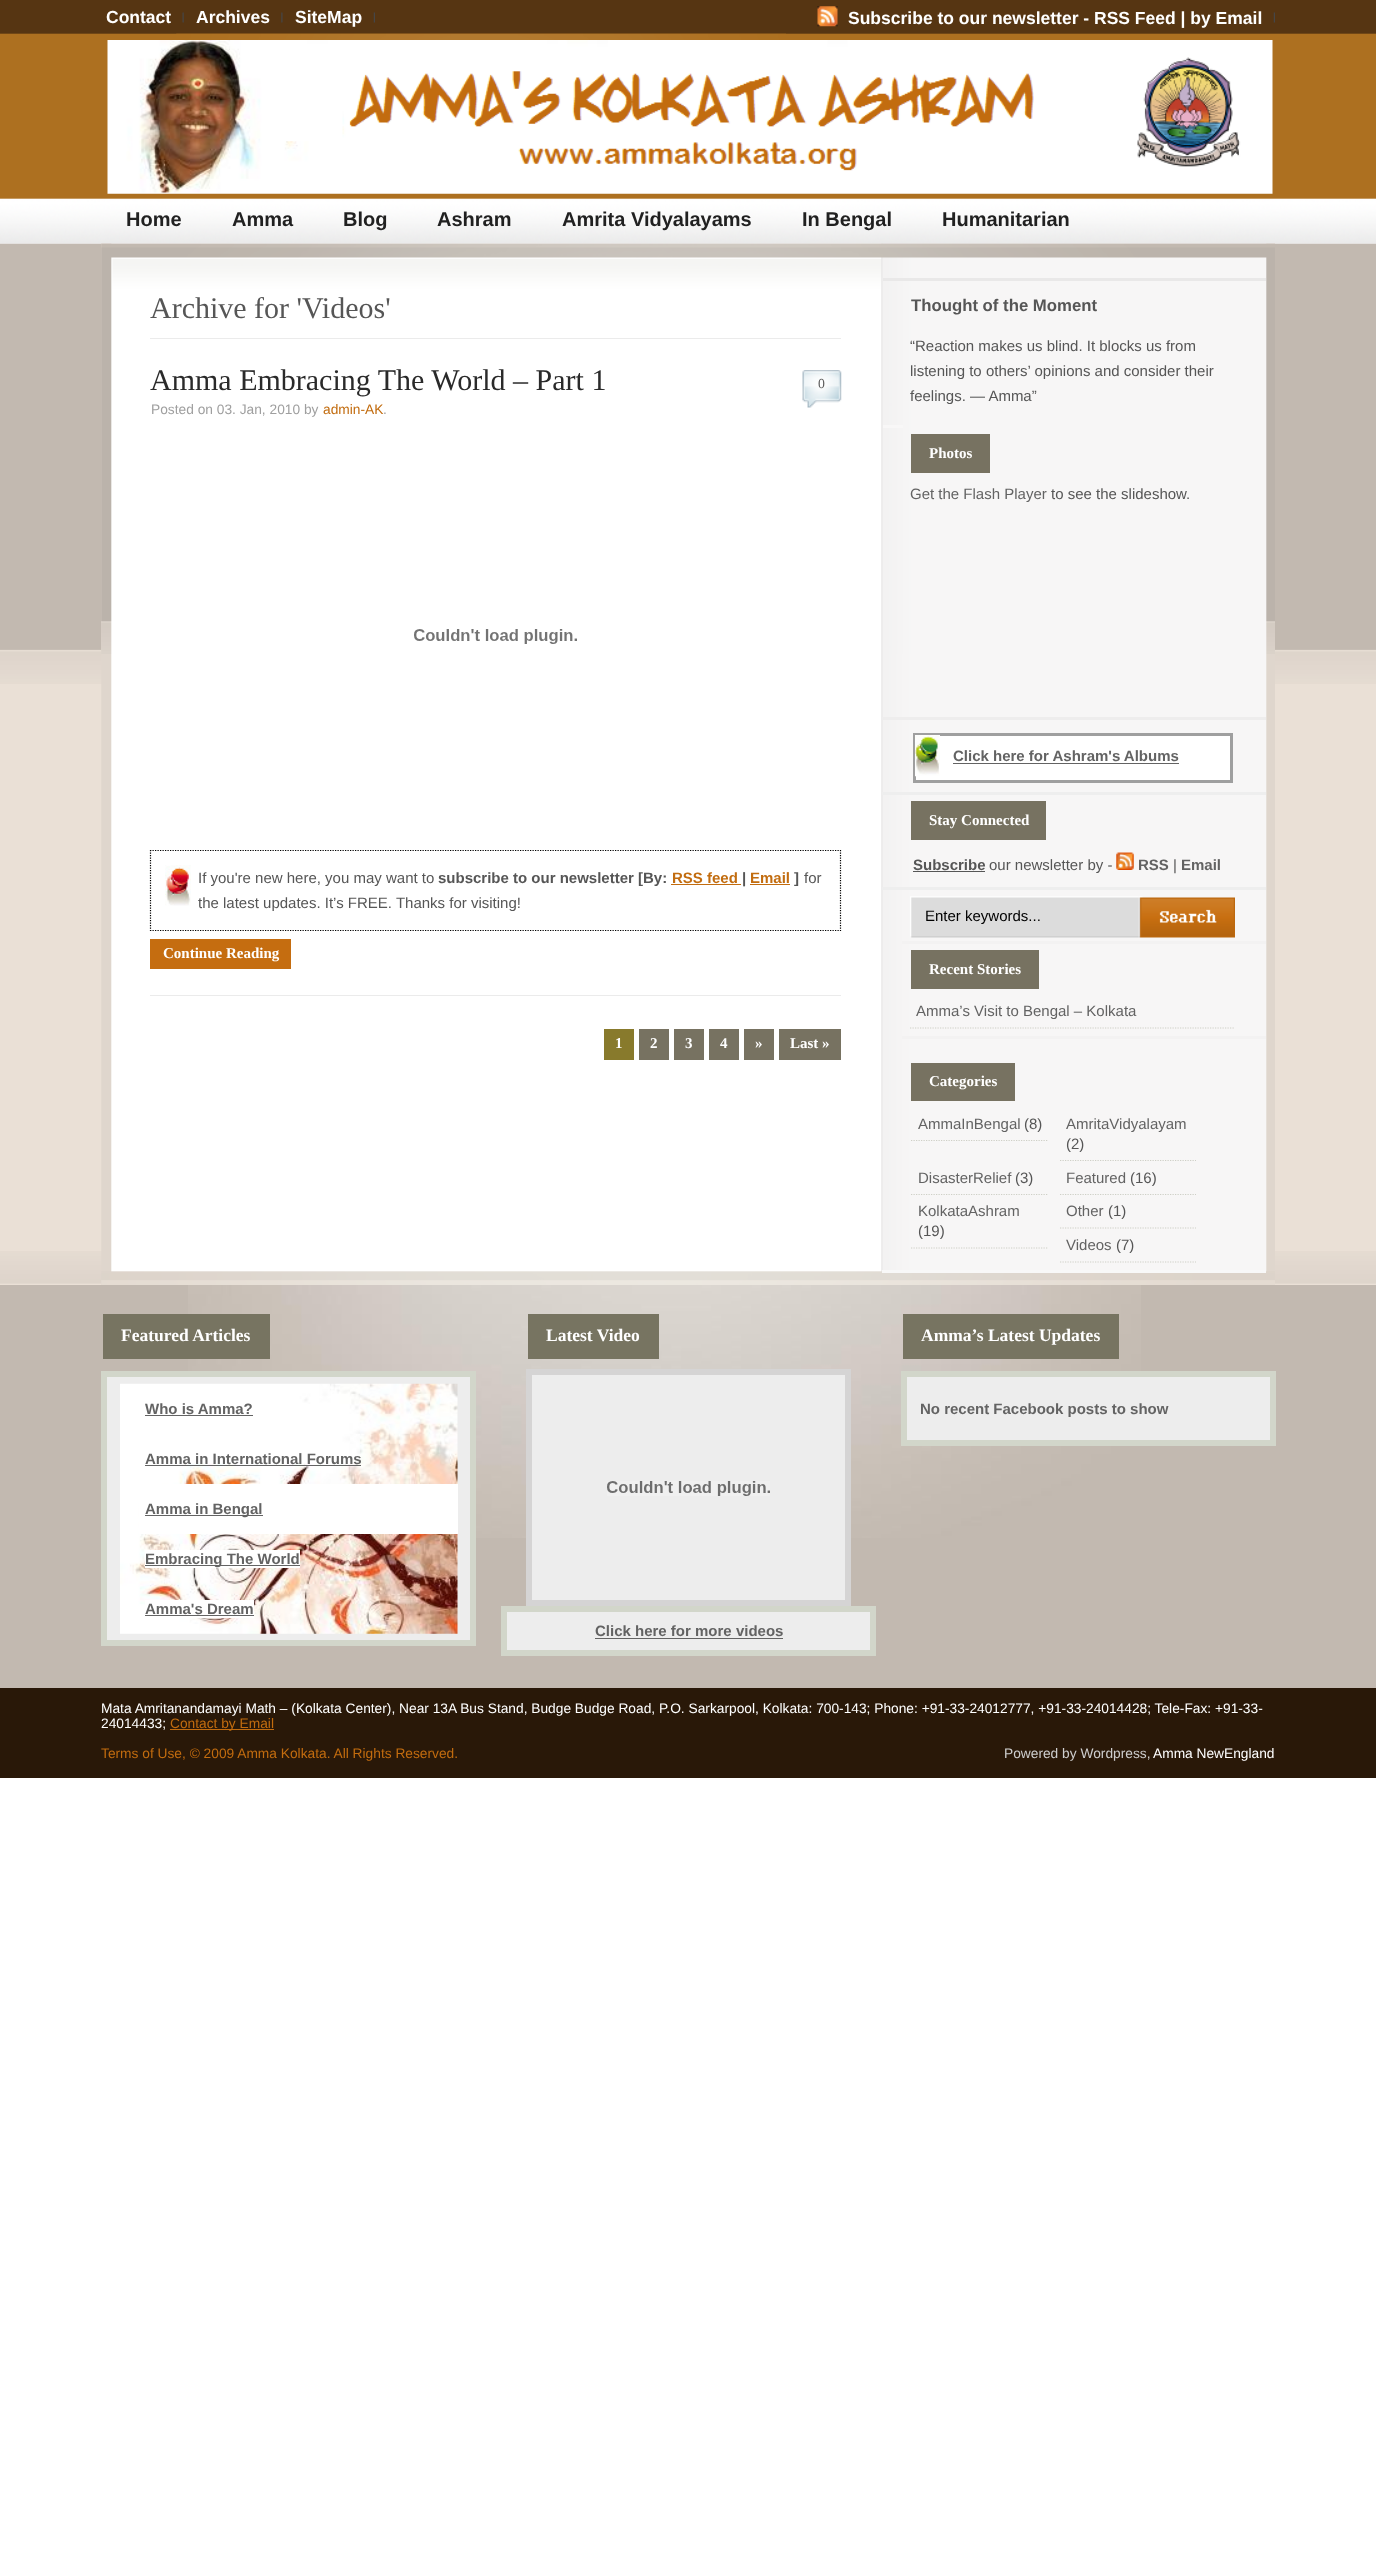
<?xml version="1.0" encoding="UTF-8"?>
<svg xmlns="http://www.w3.org/2000/svg" width="1376" height="2568">
    <rect width="100%" height="100%" fill="#FFFFFF"/>
    <image x="0" y="0" width="1376" height="244" href="img_01.png"/>
    <image x="182" y="12" width="2" height="11" href="img_02.png"/>
    <text x="106" y="23" font-family="Liberation Sans" font-size="17.5" font-weight="700" fill="#FFFFFF">Contact</text>
    <image x="281" y="12" width="2" height="11" href="img_03.png"/>
    <text x="196" y="23" font-family="Liberation Sans" font-size="17.5" font-weight="700" fill="#FFFFFF">Archives</text>
    <image x="373" y="12" width="2" height="11" href="img_04.png"/>
    <text x="295" y="23" font-family="Liberation Sans" font-size="17.5" font-weight="700" fill="#FFFFFF">SiteMap</text>
    <image x="817" y="6" width="21" height="21" href="img_05.png"/>
    <text x="848" y="24" font-family="Liberation Sans" font-size="17.5" font-weight="700" fill="#FFFFFF">Subscribe to our newsletter - RSS Feed | by Email</text>
    <image x="1273" y="12" width="2" height="11" href="img_04.png"/>
    <image x="176" y="33" width="610" height="7" href="img_06.png"/>
    <image x="107" y="40" width="1166" height="154" href="img_07.png"/>
    <text x="126" y="226" font-family="Liberation Sans" font-size="20" font-weight="700" fill="#212121">Home</text>
    <text x="232" y="226" font-family="Liberation Sans" font-size="20" font-weight="700" fill="#212121">Amma</text>
    <text x="343" y="226" font-family="Liberation Sans" font-size="20" font-weight="700" fill="#212121">Blog</text>
    <text x="437" y="226" font-family="Liberation Sans" font-size="20" font-weight="700" fill="#212121">Ashram</text>
    <text x="562" y="226" font-family="Liberation Sans" font-size="20" font-weight="700" fill="#212121">Amrita Vidyalayams</text>
    <text x="802" y="226" font-family="Liberation Sans" font-size="20" font-weight="700" fill="#212121">In Bengal</text>
    <text x="942" y="226" font-family="Liberation Sans" font-size="20" font-weight="700" fill="#212121">Humanitarian</text>
    <rect x="0" y="684" width="1376" height="601" fill="#EAE0D6"/>
    <image x="0" y="243" width="1376" height="441" href="img_08.png"/>
    <image x="0" y="1251" width="1376" height="33" href="img_09.png"/>
    <image x="101" y="243" width="1174" height="1042" href="img_10.png"/>
    <image x="101" y="1271" width="1174" height="14" href="img_11.png"/>
    <image x="101" y="243" width="1174" height="411" href="img_12.png"/>
    <rect x="150" y="338" width="691" height="1" fill="#EBEBEB"/>
    <text x="150" y="318" font-family="Liberation Serif" font-size="30" fill="#565656">Archive for 'Videos'</text>
    <text x="150" y="390" font-family="Liberation Serif" font-size="30" fill="#2A2A2A">Amma Embracing The World – Part 1</text>
    <image x="802" y="370" width="40" height="38" href="img_13.png"/>
    <text x="818" y="388" font-family="Liberation Serif" font-size="13.75" fill="#5D5D5D">0</text>
    <text x="151" y="414" font-family="Liberation Sans" font-size="13.75" fill="#9F9F9F">Posted on 03. Jan, 2010 by</text>
    <text x="323" y="414" font-family="Liberation Sans" font-size="13.75" fill="#C26C0F">admin-AK</text>
    <text x="383" y="414" font-family="Liberation Sans" font-size="13.75" fill="#9F9F9F">.</text>
    <image x="414" y="629" width="163" height="15" href="img_14.png"/>
    <path d="M 150 850.5 H 841" fill="none" stroke="#000000" stroke-width="1.2" stroke-dasharray="1.25 1.25"/>
    <path d="M 840.5 850 V 931" fill="none" stroke="#000000" stroke-width="1.2" stroke-dasharray="1.25 1.25"/>
    <path d="M 150 930.5 H 841" fill="none" stroke="#000000" stroke-width="1.2" stroke-dasharray="1.25 1.25"/>
    <path d="M 150.5 850 V 931" fill="none" stroke="#000000" stroke-width="1.2" stroke-dasharray="1.25 1.25"/>
    <image x="165" y="865" width="26" height="41" href="img_15.png"/>
    <text x="198" y="883" font-family="Liberation Sans" font-size="15" fill="#565656">If you're new here, you may want to</text>
    <text x="438" y="883" font-family="Liberation Sans" font-size="15" font-weight="700" fill="#565656">subscribe to our newsletter [By:</text>
    <text x="672" y="883" font-family="Liberation Sans" font-size="15" font-weight="700" fill="#C26C0F">RSS feed</text>
    <text x="742" y="883" font-family="Liberation Sans" font-size="15" font-weight="700" fill="#565656">|</text>
    <rect x="671" y="884" width="70" height="1" fill="#C26C0F"/>
    <text x="750" y="883" font-family="Liberation Sans" font-size="15" font-weight="700" fill="#C26C0F">Email</text>
    <rect x="750" y="884" width="40" height="1" fill="#C26C0F"/>
    <text x="794" y="883" font-family="Liberation Sans" font-size="15" font-weight="700" fill="#565656">]</text>
    <text x="804" y="883" font-family="Liberation Sans" font-size="15" fill="#565656">for</text>
    <text x="198" y="908" font-family="Liberation Sans" font-size="15" fill="#565656">the latest updates. It’s FREE. Thanks for visiting!</text>
    <rect x="150" y="939" width="141" height="30" fill="#C56D10"/>
    <text x="163" y="958" font-family="Liberation Serif" font-size="15" font-weight="700" fill="#FFFFFF">Continue Reading</text>
    <rect x="150" y="995" width="691" height="1" fill="#EBEBEB"/>
    <rect x="604" y="1029" width="30" height="31" fill="#887A2C"/>
    <text x="615" y="1048" font-family="Liberation Serif" font-size="15" font-weight="700" fill="#FFFFFF">1</text>
    <rect x="639" y="1029" width="30" height="31" fill="#777261"/>
    <text x="650" y="1048" font-family="Liberation Serif" font-size="15" font-weight="700" fill="#FFFFFF">2</text>
    <rect x="674" y="1029" width="30" height="31" fill="#777261"/>
    <text x="685" y="1048" font-family="Liberation Serif" font-size="15" font-weight="700" fill="#FFFFFF">3</text>
    <rect x="709" y="1029" width="30" height="31" fill="#777261"/>
    <text x="720" y="1048" font-family="Liberation Serif" font-size="15" font-weight="700" fill="#FFFFFF">4</text>
    <rect x="744" y="1029" width="30" height="31" fill="#777261"/>
    <text x="755" y="1048" font-family="Liberation Serif" font-size="15" font-weight="700" fill="#FFFFFF">»</text>
    <rect x="779" y="1029" width="62" height="31" fill="#777261"/>
    <text x="790" y="1048" font-family="Liberation Serif" font-size="15" font-weight="700" fill="#FFFFFF">Last »</text>
    <rect x="883" y="278" width="383" height="3" fill="#E9E8E8"/>
    <text x="911" y="311" font-family="Liberation Sans" font-size="16.75" font-weight="700" fill="#565656">Thought of the Moment</text>
    <rect x="883" y="425" width="20" height="3" fill="#F8F7F7"/>
    <text font-family="Liberation Sans" font-size="15" fill="#565656">
        <tspan x="910" y="351">“Reaction makes us blind. It blocks us from</tspan>
        <tspan x="910" y="376">listening to others’ opinions and consider their</tspan>
        <tspan x="910" y="401">feelings. — Amma”</tspan>
    </text>
    <rect x="882" y="717" width="384" height="3" fill="#EEEDED"/>
    <rect x="911" y="434" width="79" height="39" fill="#777261"/>
    <text x="929" y="458" font-family="Liberation Serif" font-size="15" font-weight="700" fill="#FFFFFF">Photos</text>
    <text x="910" y="499" font-family="Liberation Sans" font-size="15" fill="#636363">Get the Flash Player</text>
    <text x="1051" y="499" font-family="Liberation Sans" font-size="15" fill="#565656">to see the slideshow.</text>
    <rect x="882" y="792" width="384" height="3" fill="#EEEEEE"/>
    <rect x="914.5" y="734.5" width="317" height="47" fill="#FFFFFF" stroke="#9F9F9F" stroke-width="3"/>
    <image x="915" y="735" width="25" height="42" href="img_16.png"/>
    <text x="953" y="761" font-family="Liberation Sans" font-size="15" font-weight="700" fill="#636363">Click here for Ashram's Albums</text>
    <rect x="953" y="763" width="226" height="1" fill="#636363"/>
    <rect x="882" y="887" width="384" height="3" fill="#EEEEEE"/>
    <rect x="911" y="801" width="135" height="39" fill="#777261"/>
    <text x="929" y="825" font-family="Liberation Serif" font-size="15" font-weight="700" fill="#FFFFFF">Stay Connected</text>
    <text x="913" y="870" font-family="Liberation Sans" font-size="15" font-weight="700" fill="#565656">Subscribe</text>
    <rect x="913" y="871" width="72" height="1" fill="#565656"/>
    <text x="989" y="870" font-family="Liberation Sans" font-size="15" fill="#565656">our newsletter by -</text>
    <image x="1116" y="852" width="18" height="18" href="img_17.png"/>
    <text x="1138" y="870" font-family="Liberation Sans" font-size="15" font-weight="700" fill="#636363">RSS</text>
    <text x="1173" y="870" font-family="Liberation Sans" font-size="15" fill="#565656">|</text>
    <text x="1181" y="870" font-family="Liberation Sans" font-size="15" font-weight="700" fill="#636363">Email</text>
    <rect x="902" y="941" width="364" height="3" fill="#F3F2F2"/>
    <image x="910" y="896" width="229" height="42" href="img_18.png"/>
    <text x="925" y="921" font-family="Liberation Sans" font-size="15" fill="#000000">Enter keywords...</text>
    <image x="1139" y="896" width="96" height="42" href="img_19.png"/>
    <rect x="902" y="1036" width="364" height="3" fill="#F3F2F2"/>
    <rect x="911" y="950" width="128" height="39" fill="#777261"/>
    <text x="929" y="974" font-family="Liberation Serif" font-size="15" font-weight="700" fill="#FFFFFF">Recent Stories</text>
    <path d="M 910 1028 H 1235" fill="none" stroke="#CECFC6" stroke-width="1.2" stroke-dasharray="1.25 1.25"/>
    <text x="916" y="1016" font-family="Liberation Sans" font-size="15" fill="#636363">Amma’s Visit to Bengal – Kolkata</text>
    <rect x="882" y="1270" width="384" height="3" fill="#F8F8F8"/>
    <rect x="911" y="1063" width="104" height="38" fill="#777261"/>
    <text x="929" y="1086" font-family="Liberation Serif" font-size="15" font-weight="700" fill="#FFFFFF">Categories</text>
    <path d="M 911 1140.5 H 1047.5" fill="none" stroke="#CECFC6" stroke-width="1.2" stroke-dasharray="1.25 1.25"/>
    <text x="918" y="1129" font-family="Liberation Sans" font-size="15" fill="#636363">AmmaInBengal</text>
    <text x="1024" y="1129" font-family="Liberation Sans" font-size="15" fill="#565656">(8)</text>
    <path d="M 1060 1160.5 H 1196" fill="none" stroke="#CECFC6" stroke-width="1.2" stroke-dasharray="1.25 1.25"/>
    <text x="1066" y="1129" font-family="Liberation Sans" font-size="15" fill="#636363">AmritaVidyalayam</text>
    <text x="1066" y="1149" font-family="Liberation Sans" font-size="15" fill="#565656">(2)</text>
    <path d="M 911 1194.5 H 1047.5" fill="none" stroke="#CECFC6" stroke-width="1.2" stroke-dasharray="1.25 1.25"/>
    <text x="918" y="1183" font-family="Liberation Sans" font-size="15" fill="#636363">DisasterRelief</text>
    <text x="1015" y="1183" font-family="Liberation Sans" font-size="15" fill="#565656">(3)</text>
    <path d="M 1060 1194.5 H 1196" fill="none" stroke="#CECFC6" stroke-width="1.2" stroke-dasharray="1.25 1.25"/>
    <text x="1066" y="1183" font-family="Liberation Sans" font-size="15" fill="#636363">Featured</text>
    <text x="1130" y="1183" font-family="Liberation Sans" font-size="15" fill="#565656">(16)</text>
    <path d="M 911 1248 H 1047.5" fill="none" stroke="#CECFC6" stroke-width="1.2" stroke-dasharray="1.25 1.25"/>
    <text x="918" y="1216" font-family="Liberation Sans" font-size="15" fill="#636363">KolkataAshram</text>
    <text x="918" y="1236" font-family="Liberation Sans" font-size="15" fill="#565656">(19)</text>
    <path d="M 1060 1228 H 1196" fill="none" stroke="#CECFC6" stroke-width="1.2" stroke-dasharray="1.25 1.25"/>
    <text x="1066" y="1216" font-family="Liberation Sans" font-size="15" fill="#636363">Other</text>
    <text x="1108" y="1216" font-family="Liberation Sans" font-size="15" fill="#565656">(1)</text>
    <path d="M 1060 1262 H 1196" fill="none" stroke="#CECFC6" stroke-width="1.2" stroke-dasharray="1.25 1.25"/>
    <text x="1066" y="1250" font-family="Liberation Sans" font-size="15" fill="#636363">Videos</text>
    <text x="1116" y="1250" font-family="Liberation Sans" font-size="15" fill="#565656">(7)</text>
    <rect x="0" y="1285" width="1376" height="403" fill="#C2B9B0"/>
    <image x="188" y="1285" width="953" height="253" href="img_20.png"/>
    <rect x="103" y="1314" width="167" height="45" fill="#777461"/>
    <text x="121" y="1341" font-family="Liberation Serif" font-size="17.5" font-weight="700" fill="#FFFFFF">Featured Articles</text>
    <rect x="104" y="1374" width="369" height="269" fill="#EDEDED" stroke="#D2D6CA" stroke-width="6"/>
    <image x="120" y="1383" width="338" height="251" href="img_21.png"/>
    <text x="145" y="1414" font-family="Liberation Sans" font-size="15" font-weight="700" fill="#636363">Who is Amma?</text>
    <rect x="145" y="1415" width="108" height="1" fill="#636363"/>
    <text x="145" y="1464" font-family="Liberation Sans" font-size="15" font-weight="700" fill="#636363">Amma in International Forums</text>
    <rect x="145" y="1465" width="216" height="1" fill="#636363"/>
    <rect x="139" y="1484" width="319" height="50" fill="#FFFFFF"/>
    <rect x="145" y="1515" width="118" height="1" fill="#636363"/>
    <text x="145" y="1514" font-family="Liberation Sans" font-size="15" font-weight="700" fill="#636363">Amma in Bengal</text>
    <rect x="145" y="1550" width="155" height="18" fill="#FFFFFF"/>
    <rect x="145" y="1565" width="155" height="1" fill="#636363"/>
    <text x="145" y="1564" font-family="Liberation Sans" font-size="15" font-weight="700" fill="#636363">Embracing The World</text>
    <rect x="145" y="1600" width="109" height="18" fill="#FFFFFF"/>
    <text x="145" y="1614" font-family="Liberation Sans" font-size="15" font-weight="700" fill="#636363">Amma's Dream</text>
    <rect x="145" y="1615" width="109" height="1" fill="#636363"/>
    <rect x="528" y="1314" width="131" height="45" fill="#777461"/>
    <text x="546" y="1341" font-family="Liberation Serif" font-size="17.5" font-weight="700" fill="#FFFFFF">Latest Video</text>
    <rect x="529" y="1372" width="319" height="231" fill="#EDEDED" stroke="#D5D4D4" stroke-width="6"/>
    <image x="607" y="1481" width="163" height="15" href="img_22.png"/>
    <rect x="504" y="1609" width="369" height="44" fill="#EDEDED" stroke="#D2D6CA" stroke-width="6"/>
    <text x="595" y="1636" font-family="Liberation Sans" font-size="15" font-weight="700" fill="#636363">Click here for more videos</text>
    <rect x="595" y="1638" width="188" height="1" fill="#636363"/>
    <rect x="903" y="1314" width="216" height="45" fill="#777461"/>
    <text x="921" y="1341" font-family="Liberation Serif" font-size="17.5" font-weight="700" fill="#FFFFFF">Amma’s Latest Updates</text>
    <rect x="904" y="1374" width="369" height="69" fill="#EDEDED" stroke="#D2D6CA" stroke-width="6"/>
    <text x="920" y="1414" font-family="Liberation Sans" font-size="15" font-weight="700" fill="#636363">No recent Facebook posts to show</text>
    <rect x="0" y="1688" width="1376" height="90" fill="#291808"/>
    <text font-family="Liberation Sans" font-size="13.75" fill="#FFFFFF">
        <tspan x="101" y="1713">Mata Amritanandamayi Math – (Kolkata Center), Near 13A Bus Stand, Budge Budge Road, P.O. Sarkarpool, Kolkata: 700-143; Phone: +91-33-24012777, +91-33-24014428; Tele-Fax: +91-33-</tspan>
        <tspan x="101" y="1728">24014433;</tspan>
    </text>
    <rect x="170" y="1729" width="104" height="1" fill="#C26C0F"/>
    <text x="170" y="1728" font-family="Liberation Sans" font-size="13.75" fill="#C26C0F">Contact by Email</text>
    <text x="101" y="1758" font-family="Liberation Sans" font-size="13.75" fill="#C26C0F">Terms of Use, © 2009 Amma Kolkata. All Rights Reserved.</text>
    <text x="1004" y="1758" font-family="Liberation Sans" font-size="13.75" fill="#CECECE">Powered by Wordpress,</text>
    <text x="1153" y="1758" font-family="Liberation Sans" font-size="13.75" fill="#FFFFFF">Amma NewEngland</text>
</svg>
